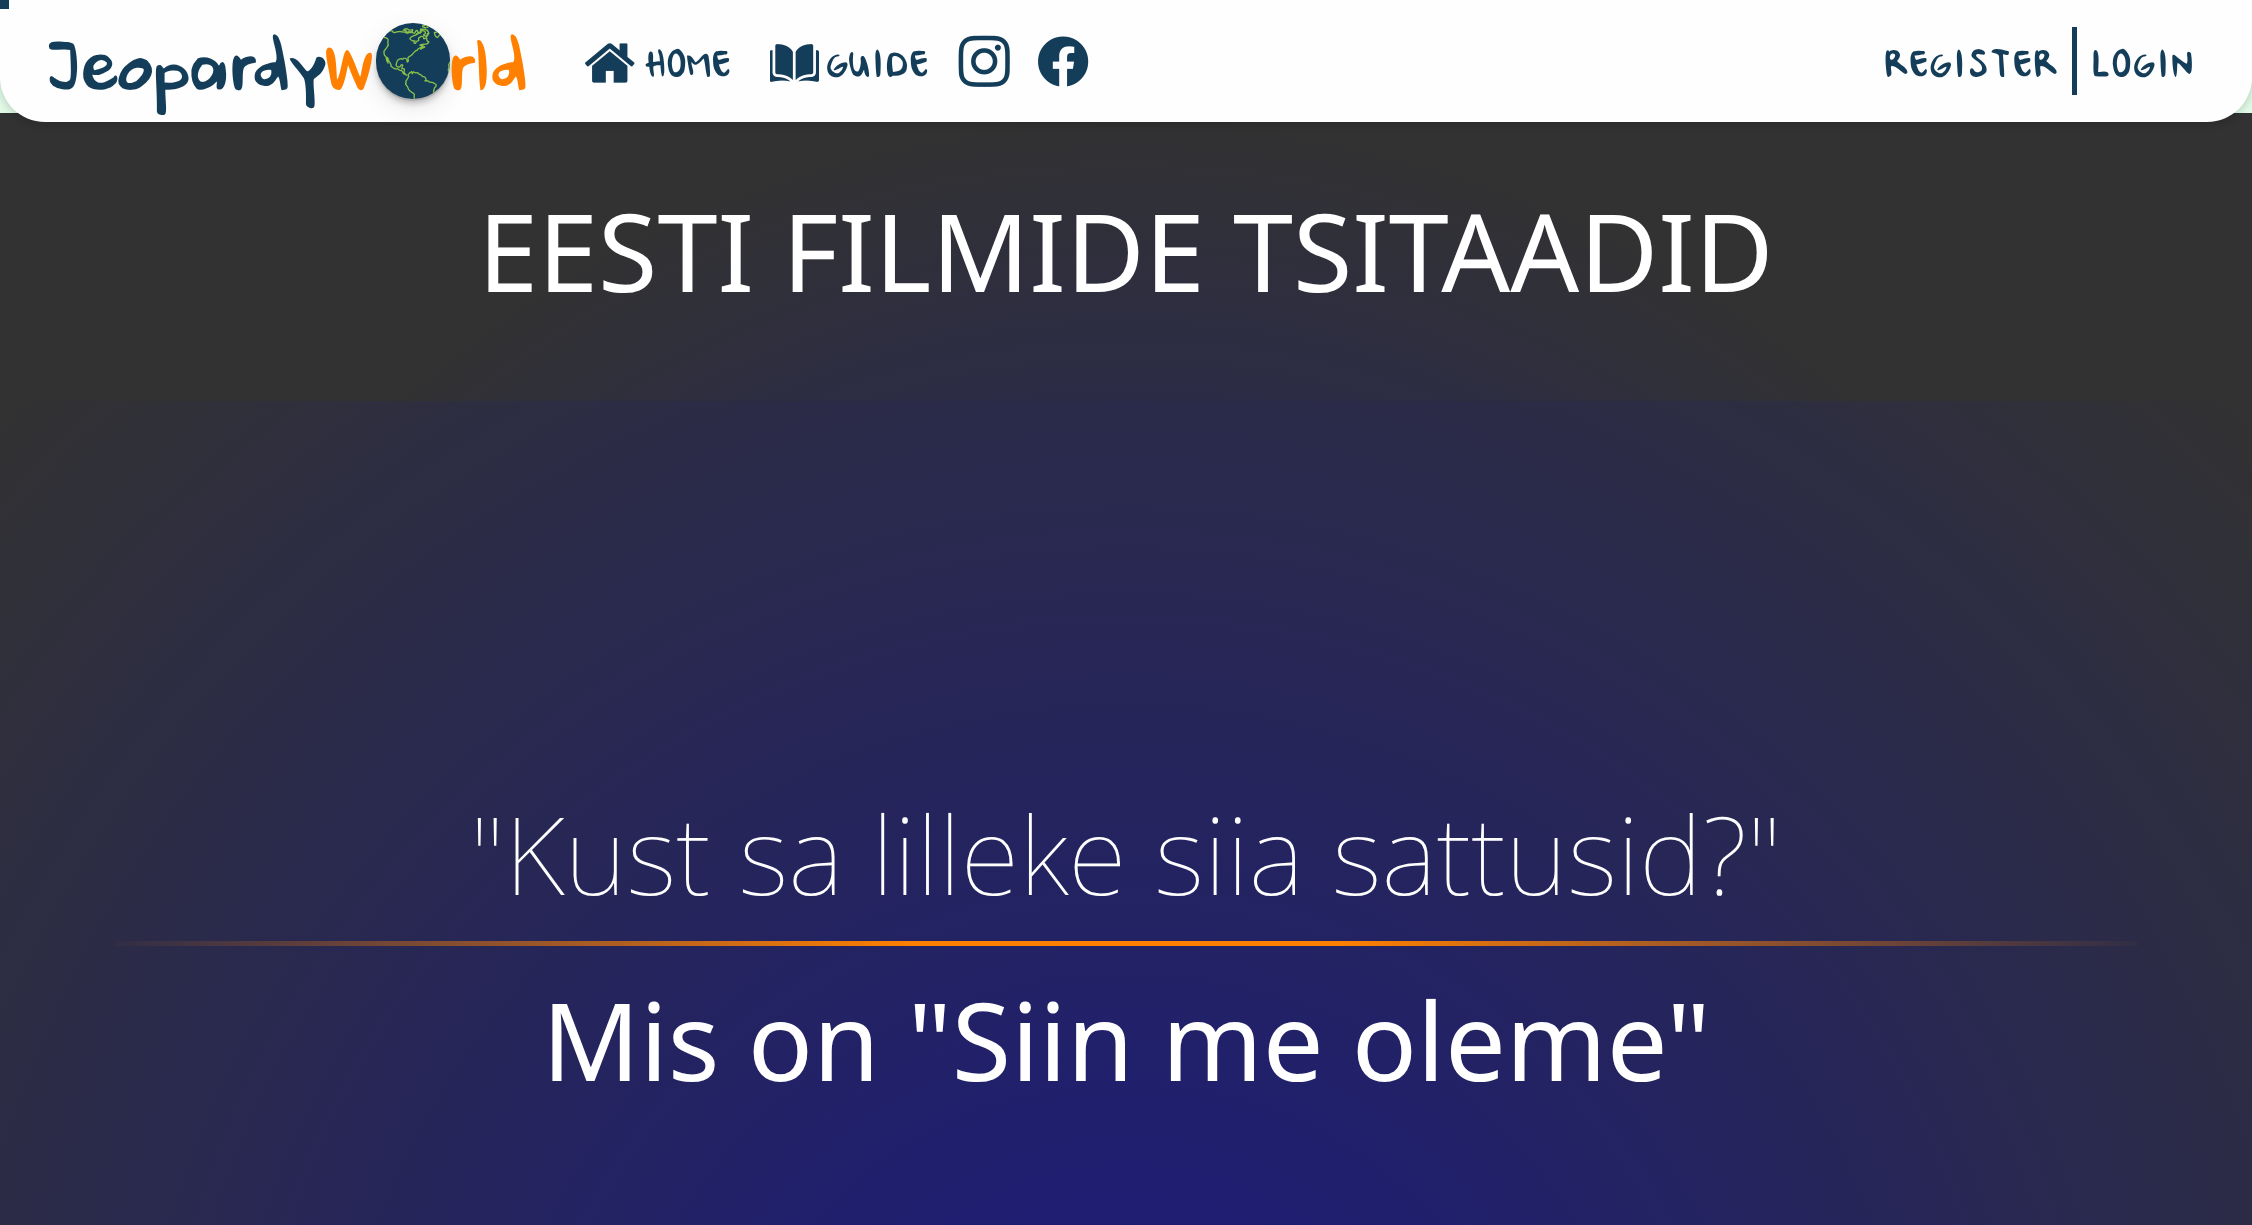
<?xml version="1.0" encoding="UTF-8"?>
<svg xmlns="http://www.w3.org/2000/svg" width="2252" height="1225">
    <defs>
        <radialGradient id="g1" gradientUnits="userSpaceOnUse" cx="1126" cy="1215" r="1576"><stop offset="0" stop-color="#1A1981"/><stop offset="0.7" stop-color="#323232"/></radialGradient>
        <filter id="blur1" x="-50%" y="-200%" width="200%" height="500%"><feGaussianBlur stdDeviation="5.5"/></filter>
        <filter id="blur2" x="-50%" y="-200%" width="200%" height="500%"><feGaussianBlur stdDeviation="12"/></filter>
        <filter id="blur3" x="-50%" y="-200%" width="200%" height="500%"><feGaussianBlur stdDeviation="3.5"/></filter>
        <filter id="blur4" x="-50%" y="-200%" width="200%" height="500%"><feGaussianBlur stdDeviation="2"/></filter>
        <filter id="blur5" x="-50%" y="-200%" width="200%" height="500%"><feGaussianBlur stdDeviation="0.5"/></filter>
        <radialGradient id="g2" gradientUnits="userSpaceOnUse" cx="1126" cy="1503" r="1576"><stop offset="0" stop-color="#1A1981"/><stop offset="1" stop-color="#323232"/></radialGradient>
        <linearGradient id="g3" gradientUnits="userSpaceOnUse" x1="54" y1="943" x2="2198" y2="943"><stop offset="0.02" stop-color="#FF8000" stop-opacity="0"/><stop offset="0.4" stop-color="#FF8000"/><stop offset="0.6" stop-color="#FF8000"/><stop offset="0.98" stop-color="#FF8000" stop-opacity="0"/></linearGradient>
    </defs>
    <rect width="100%" height="100%" fill="#FFFFFF"/>
    <image x="0" y="77" width="2252" height="36" href="img_01.png"/>
    <rect x="0" y="113" width="2252" height="288" fill="url(#g1)"/>
    <rect x="0" y="2" width="2252" height="122" rx="45" fill="#000000" fill-opacity="0.2" filter="url(#blur1)"/>
    <path d="M 0 0 H 2252 V 77 C 2252 102 2232 122 2207 122 H 45 C 20 122 0 102 0 77 Z" fill="#FEFEFE"/>
    <rect x="0" y="0" width="9" height="9" fill="#143D59"/>
    <text x="45" y="90" font-family="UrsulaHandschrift" font-size="72" fill="#143D59">Jeopardy</text>
    <rect x="376" y="32" width="74" height="74" rx="37" fill="#101010" fill-opacity="0.1" filter="url(#blur2)"/>
    <rect x="376" y="29" width="74" height="75" rx="37" fill="#101010" fill-opacity="0.1" filter="url(#blur3)"/>
    <rect x="376" y="29" width="74" height="75" rx="37" fill="#101010" fill-opacity="0.1" filter="url(#blur4)"/>
    <rect x="376" y="27" width="74" height="74" rx="37" fill="#000000" fill-opacity="0.1" filter="url(#blur5)"/>
    <rect x="376" y="23" width="74" height="76" rx="37" fill="#143D59"/>
    <image x="383" y="24" width="67" height="75" href="img_02.png"/>
    <text x="448" y="90" font-family="UrsulaHandschrift" font-size="72" fill="#FF8000">rld</text>
    <text x="326" y="90" font-family="UrsulaHandschrift" font-size="72" fill="#FF8000">W</text>
    <image x="585" y="43" width="50" height="40" href="img_03.png"/>
    <text x="645" y="77" font-family="UrsulaHandschrift" font-size="40.5" letter-spacing="1.75" fill="#143D59">HOME</text>
    <image x="770" y="44" width="49" height="38" href="img_04.png"/>
    <text x="827" y="77" font-family="UrsulaHandschrift" font-size="40.5" letter-spacing="1.75" fill="#143D59">GUIDE</text>
    <image x="958" y="35" width="52" height="52" href="img_05.png"/>
    <image x="1038" y="36" width="51" height="51" href="img_06.png"/>
    <text x="1885" y="77" font-family="UrsulaHandschrift" font-size="40.5" letter-spacing="1.75" fill="#143D59">REGISTER</text>
    <rect x="2072" y="27" width="5" height="68" fill="#143D59"/>
    <text x="2090" y="77" font-family="UrsulaHandschrift" font-size="40.5" letter-spacing="1.75" fill="#143D59">LOGIN</text>
    <text x="478" y="292" font-family="Noto Sans" font-size="108" fill="#FFFFFF">EESTI FILMIDE TSITAADID</text>
    <rect x="0" y="401" width="2252" height="824" fill="url(#g2)"/>
    <text x="470" y="895" font-family="Noto Sans" font-size="108" font-weight="100" fill="#FFFFFF">"Kust sa lilleke siia sattusid?"</text>
    <rect x="114" y="941" width="2024" height="5" fill="url(#g3)"/>
    <text x="542" y="1081" font-family="Noto Sans" font-size="108" fill="#FFFFFF">Mis on "Siin me oleme"</text>
</svg>
